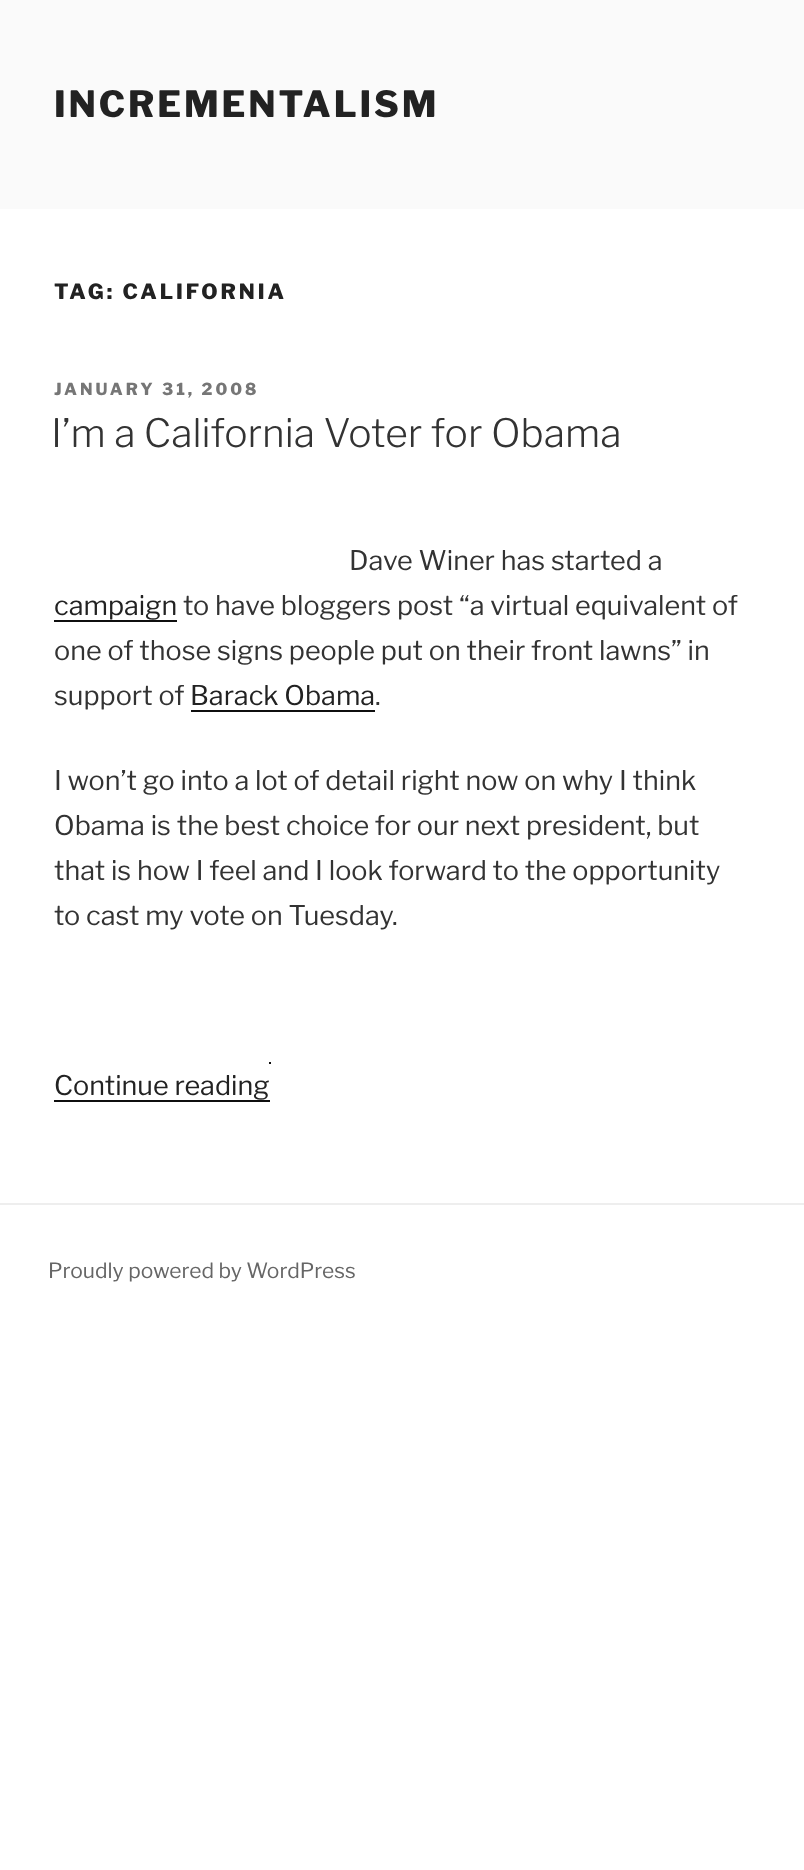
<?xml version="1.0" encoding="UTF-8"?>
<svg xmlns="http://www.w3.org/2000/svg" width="804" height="1870">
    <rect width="100%" height="100%" fill="#FFFFFF"/>
    <rect x="0" y="0" width="804" height="209" fill="#FAFAFA"/>
    <text x="54" y="117" font-family="Libre Franklin" font-size="36" font-weight="100" letter-spacing="2.9" fill="#222222">INCREMENTALISM</text>
    <text x="54" y="299" font-family="Libre Franklin" font-size="21" font-weight="100" letter-spacing="3" fill="#222222">TAG: CALIFORNIA</text>
    <text x="54" y="395" font-family="Libre Franklin" font-size="16.5" font-weight="100" letter-spacing="3" fill="#767676">JANUARY 31, 2008</text>
    <text x="51" y="447" font-family="'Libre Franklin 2'" font-size="39" font-weight="100" fill="#333333">I’m a California Voter for Obama</text>
    <text x="349" y="570" font-family="'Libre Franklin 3'" font-size="27" font-weight="100" fill="#333333">Dave Winer has started a</text>
    <text x="54" y="615" font-family="'Libre Franklin 3'" font-size="27" font-weight="100" fill="#222222">campaign</text>
    <rect x="54" y="620" width="123" height="2" fill="#0F0F0F"/>
    <text x="183" y="615" font-family="'Libre Franklin 3'" font-size="27" font-weight="100" fill="#333333">to have bloggers post “a virtual equivalent of</text>
    <text font-family="'Libre Franklin 3'" font-size="27" font-weight="100" fill="#333333">
        <tspan x="54" y="660">one of those signs people put on their front lawns” in</tspan>
        <tspan x="54" y="705">support of</tspan>
    </text>
    <text x="190" y="705" font-family="'Libre Franklin 3'" font-size="27" font-weight="100" fill="#222222">Barack Obama</text>
    <rect x="191" y="710" width="184" height="2" fill="#0F0F0F"/>
    <text x="375" y="705" font-family="'Libre Franklin 3'" font-size="27" font-weight="100" fill="#333333">.</text>
    <text font-family="'Libre Franklin 3'" font-size="27" font-weight="100" fill="#333333">
        <tspan x="54" y="790">I won’t go into a lot of detail right now on why I think</tspan>
        <tspan x="54" y="835">Obama is the best choice for our next president, but</tspan>
        <tspan x="54" y="880">that is how I feel and I look forward to the opportunity</tspan>
        <tspan x="54" y="925">to cast my vote on Tuesday.</tspan>
    </text>
    <text x="54" y="1095" font-family="'Libre Franklin 3'" font-size="27" font-weight="100" fill="#222222">Continue reading</text>
    <rect x="54" y="1100" width="216" height="2" fill="#0F0F0F"/>
    <rect x="269" y="1062" width="2" height="2" fill="#0F0F0F"/>
    <rect x="0" y="1203" width="804" height="2" fill="#EEEEEE"/>
    <text x="48" y="1278" font-family="'Libre Franklin 3'" font-size="21" font-weight="100" fill="#666666">Proudly powered by WordPress</text>
</svg>
